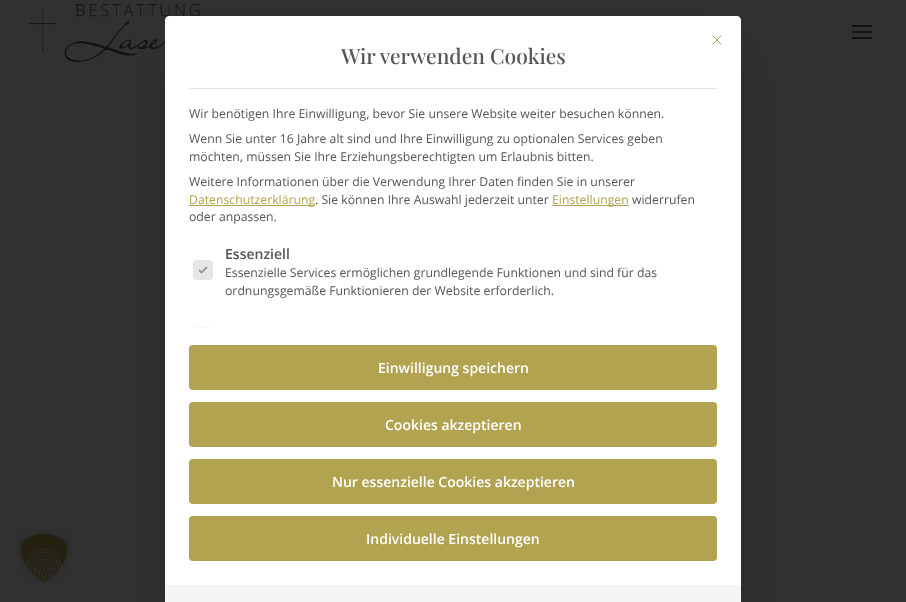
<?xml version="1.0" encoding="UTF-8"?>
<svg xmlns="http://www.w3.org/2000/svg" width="906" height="602">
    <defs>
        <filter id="blur1" x="-50%" y="-200%" width="200%" height="500%"><feGaussianBlur stdDeviation="25"/></filter>
        <clipPath id="clip1"><rect x="189" y="89" width="528" height="240"/></clipPath>
        <linearGradient id="g1" gradientUnits="userSpaceOnUse" x1="453" y1="329" x2="453" y2="299"><stop offset="0" stop-color="#FFFFFF"/><stop offset="1" stop-color="#FFFFFF" stop-opacity="0"/></linearGradient>
    </defs>
    <rect width="100%" height="100%" fill="#313131"/>
    <image x="29" y="3" width="171" height="60" href="img_01.png"/>
    <rect x="852" y="37" width="20" height="2" rx="1" fill="#0D1213"/>
    <rect x="852" y="25" width="20" height="2" rx="1" fill="#0D1213"/>
    <rect x="852" y="31" width="20" height="2" rx="1" fill="#0D1213"/>
    <rect x="177" y="53" width="552" height="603" fill="#000000" fill-opacity="0.25" filter="url(#blur1)"/>
    <path d="M 169 16 H 737 C 739 16 741 18 741 20 V 602 H 165 V 20 C 165 18 167 16 169 16 Z" fill="#FFFFFF"/>
    <path d="M 713 44 L 721 36 M 713 36 L 721 44" fill="none" stroke="#B2A350" stroke-linecap="round" stroke-linejoin="round"/>
    <rect x="189" y="88" width="528" height="1" fill="#E5E5E5"/>
    <text x="341" y="64" font-family="Playfair Display" font-size="21" font-weight="500" fill="#555555">Wir verwenden Cookies</text>
    <text x="189" y="118" font-family="Open Sans" font-size="12.25" fill="#555555">Wir benötigen Ihre Einwilligung, bevor Sie unsere Website weiter besuchen können.</text>
    <text font-family="Open Sans" font-size="12.25" fill="#555555">
        <tspan x="189" y="143">Wenn Sie unter 16 Jahre alt sind und Ihre Einwilligung zu optionalen Services geben</tspan>
        <tspan x="189" y="161">möchten, müssen Sie Ihre Erziehungsberechtigten um Erlaubnis bitten.</tspan>
    </text>
    <text x="189" y="186" font-family="Open Sans" font-size="12.25" fill="#555555">Weitere Informationen über die Verwendung Ihrer Daten finden Sie in unserer</text>
    <rect x="189" y="205" width="126" height="1" fill="#B2A350"/>
    <text x="189" y="204" font-family="Open Sans" font-size="12.25" fill="#B2A350">Datenschutzerklärung</text>
    <text x="315" y="204" font-family="Open Sans" font-size="12.25" fill="#555555">. Sie können Ihre Auswahl jederzeit unter</text>
    <rect x="552" y="205" width="77" height="1" fill="#B2A350"/>
    <text x="552" y="204" font-family="Open Sans" font-size="12.25" fill="#B2A350">Einstellungen</text>
    <text x="632" y="204" font-family="Open Sans" font-size="12.25" fill="#555555">widerrufen</text>
    <text x="189" y="221" font-family="Open Sans" font-size="12.25" fill="#555555">oder anpassen.</text>
    <rect x="194" y="261" width="18" height="18" rx="3" fill="#E6E6E6" stroke="#E6E6E6" stroke-width="2"/>
    <image x="198" y="266" width="10" height="8" href="img_02.png"/>
    <text x="225" y="259" font-family="Open Sans" font-size="14" font-weight="600" fill="#555555">Essenziell</text>
    <text font-family="Open Sans" font-size="12.25" fill="#555555">
        <tspan x="225" y="277">Essenzielle Services ermöglichen grundlegende Funktionen und sind für das</tspan>
        <tspan x="225" y="295">ordnungsgemäße Funktionieren der Website erforderlich.</tspan>
    </text>
    <rect x="189" y="345" width="528" height="45" rx="4" fill="#B2A350"/>
    <g clip-path="url(#clip1)">
        <rect x="194" y="327" width="18" height="18" rx="3" fill="none" stroke="#B2A350" stroke-width="2"/>
    </g>
    <rect x="193" y="326" width="20" height="3" fill="url(#g1)"/>
    <text x="378" y="373" font-family="Open Sans" font-size="14" font-weight="600" fill="#FFFFFF">Einwilligung speichern</text>
    <rect x="189" y="402" width="528" height="45" rx="4" fill="#B2A350"/>
    <text x="385" y="430" font-family="Open Sans" font-size="14" font-weight="600" fill="#FFFFFF">Cookies akzeptieren</text>
    <rect x="189" y="459" width="528" height="45" rx="4" fill="#B2A350"/>
    <text x="332" y="487" font-family="Open Sans" font-size="14" font-weight="600" fill="#FFFFFF">Nur essenzielle Cookies akzeptieren</text>
    <rect x="189" y="516" width="528" height="45" rx="4" fill="#B2A350"/>
    <text x="366" y="544" font-family="Open Sans" font-size="14" font-weight="600" fill="#FFFFFF">Individuelle Einstellungen</text>
    <rect x="165" y="585" width="576" height="17" fill="#F5F5F5"/>
    <image x="16" y="529" width="56" height="55" href="img_03.png"/>
</svg>
